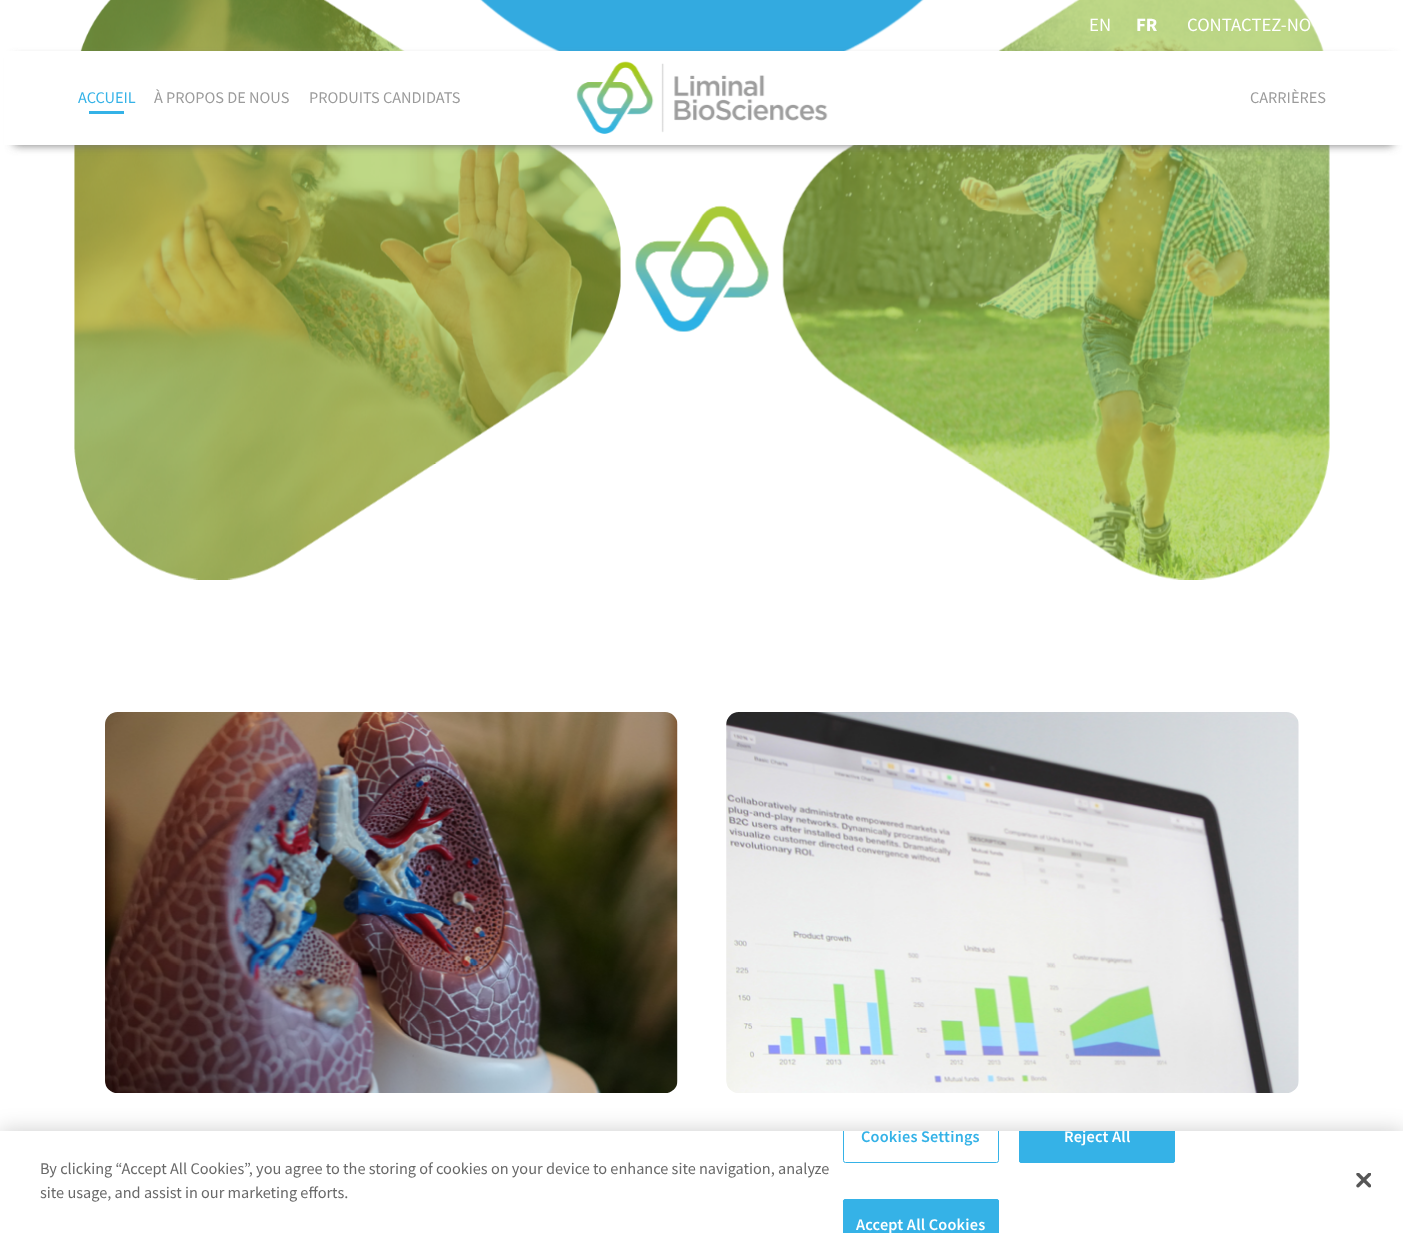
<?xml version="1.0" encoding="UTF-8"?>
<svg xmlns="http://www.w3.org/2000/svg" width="1403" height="1233">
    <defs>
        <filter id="blur1" x="-50%" y="-200%" width="200%" height="500%"><feGaussianBlur stdDeviation="5"/></filter>
        <filter id="blur2" x="-50%" y="-200%" width="200%" height="500%"><feGaussianBlur stdDeviation="11"/></filter>
        <clipPath id="clip1"><rect x="0" y="1131" width="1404" height="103"/></clipPath>
    </defs>
    <rect width="100%" height="100%" fill="#FFFFFF"/>
    <image x="74" y="0" width="547" height="580" href="img_01.png"/>
    <image x="635" y="205" width="134" height="127" href="img_02.png"/>
    <image x="782" y="0" width="548" height="580" href="img_03.png"/>
    <image x="480" y="0" width="444" height="51" href="img_04.png"/>
    <image x="105" y="712" width="573" height="381" href="img_05.png"/>
    <image x="726" y="712" width="573" height="381" href="img_06.png"/>
    <text x="1089" y="31" font-family="Source Sans Pro" font-size="18.75" fill="#FFFFFF">EN</text>
    <text x="1136" y="31" font-family="Source Sans Pro" font-size="18.75" font-weight="700" fill="#FFFFFF">FR</text>
    <text x="1187" y="31" font-family="Source Sans Pro" font-size="18.75" fill="#FFFFFF">CONTACTEZ-NO</text>
    <rect x="14" y="58" width="1379" height="87" fill="#737373" filter="url(#blur1)"/>
    <rect x="4" y="51" width="1399" height="94" fill="#FFFFFF"/>
    <text x="78" y="103" font-family="Source Sans Pro" font-size="16.25" fill="#34B2E7">ACCUEIL</text>
    <rect x="89" y="111" width="35" height="3" fill="#34B2E7"/>
    <text x="154" y="103" font-family="Source Sans Pro" font-size="16.25" fill="#9B9B9B">À PROPOS DE NOUS</text>
    <text x="309" y="103" font-family="Source Sans Pro" font-size="16.25" fill="#9B9B9B">PRODUITS CANDIDATS</text>
    <image x="576" y="61" width="252" height="73" href="img_07.png"/>
    <text x="1250" y="103" font-family="Source Sans Pro" font-size="16.25" fill="#9B9B9B">CARRIÈRES</text>
    <rect x="0" y="1131" width="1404" height="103" fill="#000000" fill-opacity="0.2" filter="url(#blur2)"/>
    <rect x="0" y="1131" width="1403" height="102" fill="#FFFFFF"/>
    <text font-family="Source Sans Pro" font-size="16.25" fill="#696969">
        <tspan x="40" y="1174">By clicking “Accept All Cookies”, you agree to the storing of cookies on your device to enhance site navigation, analyze</tspan>
        <tspan x="40" y="1198">site usage, and assist in our marketing efforts.</tspan>
    </text>
    <g clip-path="url(#clip1)">
        <rect x="843.5" y="1110.5" width="155" height="52" rx="2" fill="none" stroke="#35B2E7"/>
        <text x="861" y="1142" font-family="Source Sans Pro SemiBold" font-size="16.25" font-weight="600" letter-spacing="0.2" fill="#34B2E7">Cookies Settings</text>
    </g>
    <path d="M 1019 1131 H 1175 V 1160.5 C 1175 1162 1174 1163 1172.5 1163 H 1021.5 C 1020 1163 1019 1162 1019 1160.5 Z" fill="#35B2E7"/>
    <g clip-path="url(#clip1)">
        <rect x="1019.5" y="1110.5" width="155" height="52" rx="2" fill="none" stroke="#35B2E7"/>
        <text x="1064" y="1142" font-family="Source Sans Pro SemiBold" font-size="16.25" font-weight="600" letter-spacing="0.2" fill="#FFFFFF">Reject All</text>
    </g>
    <path d="M 845.5 1199 H 996.5 C 998 1199 999 1200 999 1201.5 V 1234 H 843 V 1201.5 C 843 1200 844 1199 845.5 1199 Z" fill="#35B2E7"/>
    <rect x="843.5" y="1199.5" width="155" height="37" rx="2" fill="none" stroke="#35B2E7"/>
    <text x="856" y="1230" font-family="Source Sans Pro SemiBold" font-size="16.25" font-weight="600" letter-spacing="0.2" fill="#FFFFFF">Accept All Cookies</text>
    <image x="1356" y="1173" width="15" height="15" href="img_08.png"/>
</svg>
